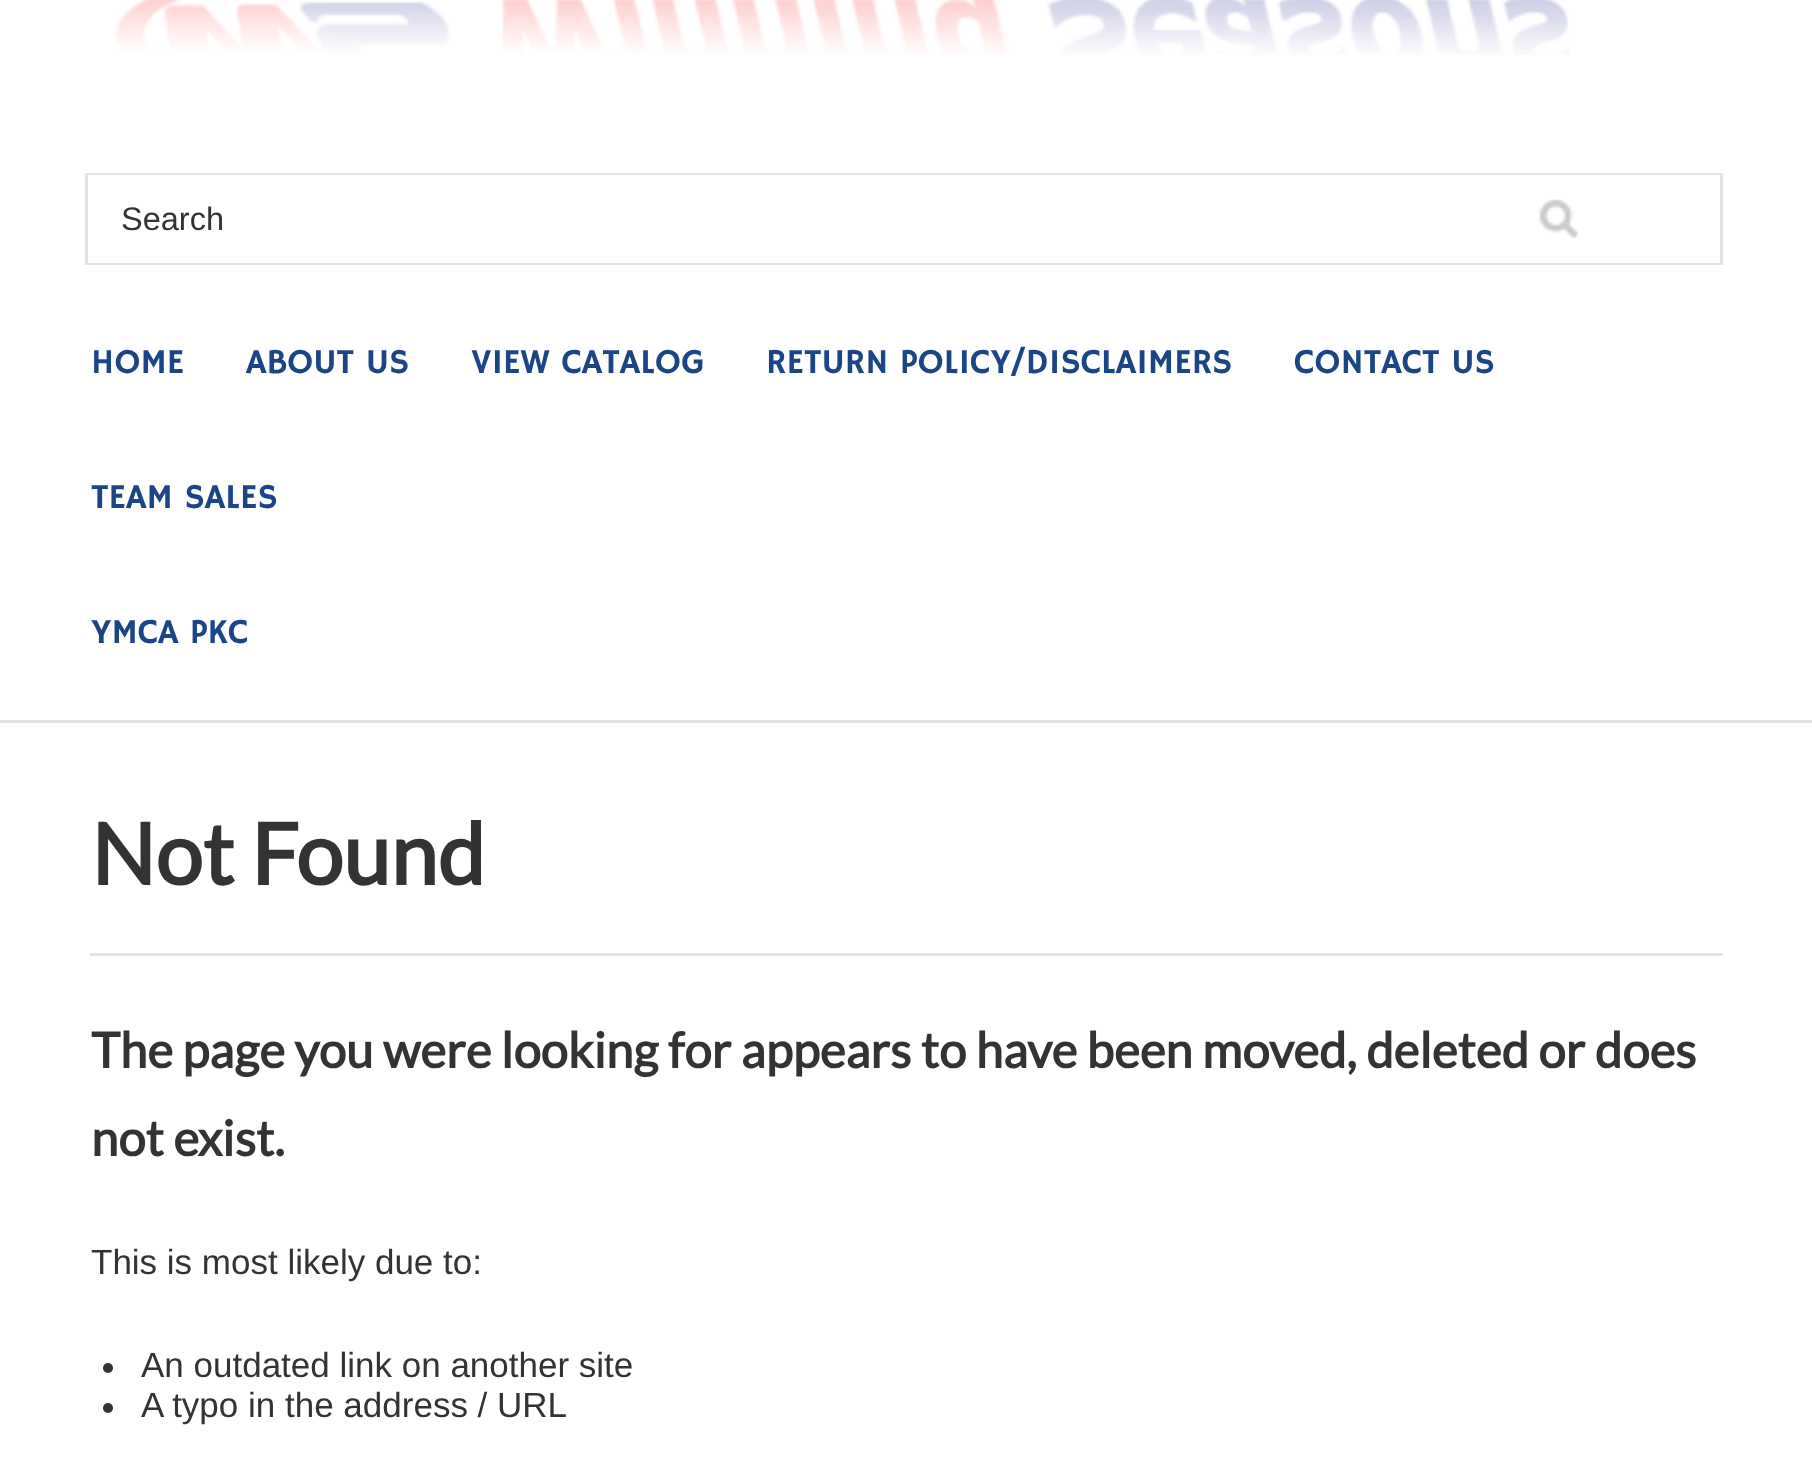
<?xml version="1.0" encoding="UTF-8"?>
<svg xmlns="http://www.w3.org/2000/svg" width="1812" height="1467">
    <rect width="100%" height="100%" fill="#FFFFFF"/>
    <rect x="0" y="720" width="1812" height="3" fill="#E3E3E3"/>
    <image x="115" y="0" width="1455" height="55" href="img_01.png"/>
    <rect x="86.5" y="174.5" width="1635" height="89" fill="none" stroke="#E3E3E3" stroke-width="3"/>
    <rect x="88" y="175" width="1632" height="88" fill="#FFFFFF"/>
    <text x="121" y="230" font-family="Liberation Sans" font-size="32.5" fill="#333333">Search</text>
    <image x="1539" y="199" width="40" height="40" href="img_02.png"/>
    <text x="91" y="373" font-family="Hammersmith One" font-size="35" fill="#1C4587">HOME</text>
    <text x="246" y="373" font-family="Hammersmith One" font-size="35" fill="#1C4587">ABOUT US</text>
    <text x="471" y="373" font-family="Hammersmith One" font-size="35" fill="#1C4587">VIEW CATALOG</text>
    <text x="766" y="373" font-family="Hammersmith One" font-size="35" fill="#1C4587">RETURN POLICY/DISCLAIMERS</text>
    <text x="1294" y="373" font-family="Hammersmith One" font-size="35" fill="#1C4587">CONTACT US</text>
    <text x="91" y="508" font-family="Hammersmith One" font-size="35" fill="#1C4587">TEAM SALES</text>
    <text x="91" y="643" font-family="Hammersmith One" font-size="35" fill="#1C4587">YMCA PKC</text>
    <rect x="90" y="953" width="1633" height="3" fill="#E3E3E3"/>
    <text x="91" y="885" font-family="Lato" font-size="85" font-weight="700" fill="#333333">Not Found</text>
    <text font-family="Lato" font-size="49" font-weight="700" fill="#333333">
        <tspan x="91" y="1068">The page you were looking for appears to have been moved, deleted or does</tspan>
        <tspan x="91" y="1156">not exist.</tspan>
    </text>
    <text x="91" y="1274" font-family="Liberation Sans" font-size="35" fill="#333333">This is most likely due to:</text>
    <circle cx="108" cy="1368" r="5" fill="#333333"/>
    <text x="141" y="1377" font-family="Liberation Sans" font-size="35" fill="#333333">An outdated link on another site</text>
    <circle cx="108" cy="1408" r="5" fill="#333333"/>
    <text x="141" y="1417" font-family="Liberation Sans" font-size="35" fill="#333333">A typo in the address / URL</text>
</svg>
